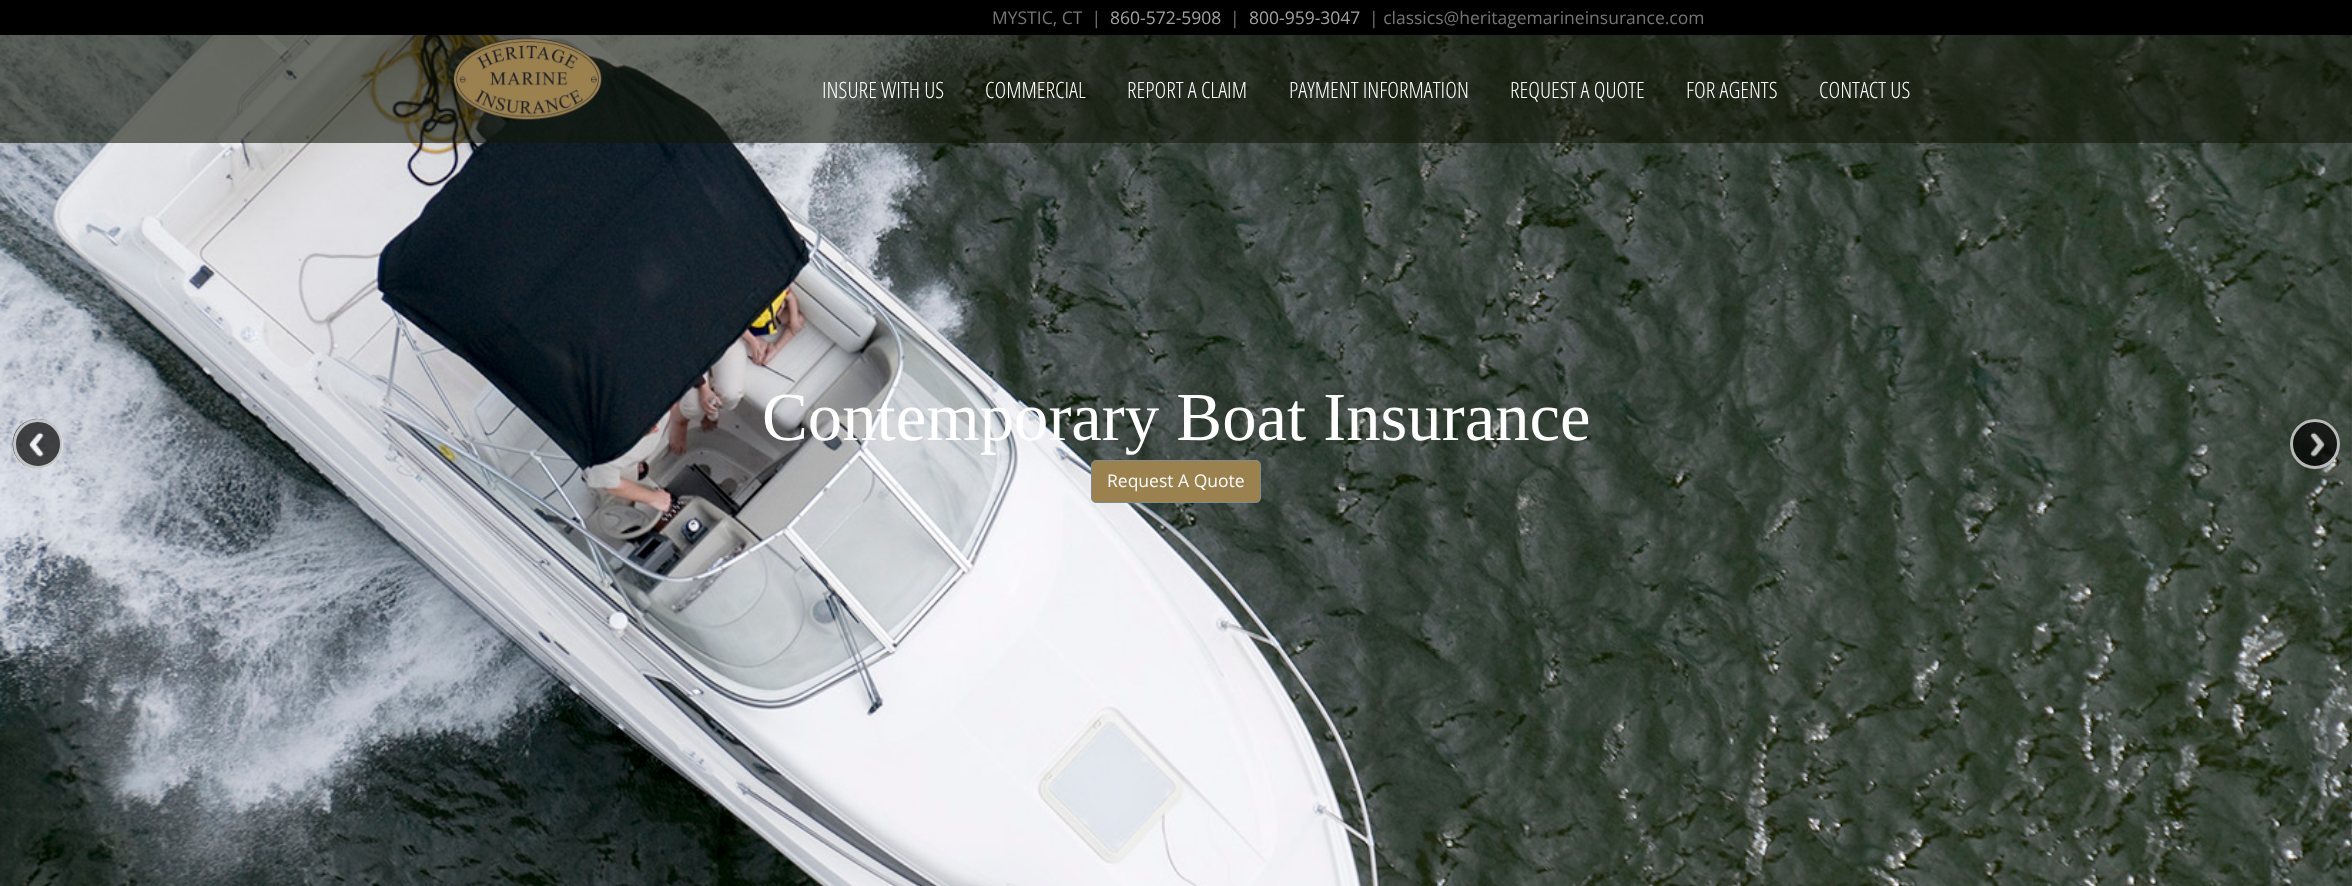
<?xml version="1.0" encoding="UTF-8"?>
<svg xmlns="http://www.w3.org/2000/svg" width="2352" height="886">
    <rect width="100%" height="100%" fill="#FFFFFF"/>
    <image x="0" y="35" width="2352" height="851" href="img_03.png"/>
    <rect x="0" y="35" width="2352" height="108" fill="#121709" fill-opacity="0.6"/>
    <rect x="0" y="0" width="2352" height="35" fill="#000000"/>
    <text x="992" y="24" font-family="Open Sans" font-size="17.5" fill="#777676" xml:space="preserve">MYSTIC, CT  |</text>
    <text x="1110" y="24" font-family="Open Sans" font-size="17.5" fill="#A3A1A1">860-572-5908</text>
    <text x="1230" y="24" font-family="Open Sans" font-size="17.5" fill="#777676">|</text>
    <text x="1249" y="24" font-family="Open Sans" font-size="17.5" fill="#A3A1A1">800-959-3047</text>
    <text x="1369" y="24" font-family="Open Sans" font-size="17.5" fill="#777676">| classics@heritagemarineinsurance.com</text>
    <image x="453" y="38" width="149" height="82" href="img_01.png"/>
    <text x="822" y="98" font-family="Open Sans Condensed" font-size="22.5" font-weight="300" fill="#FFFFFF">INSURE WITH US</text>
    <text x="985" y="98" font-family="Open Sans Condensed" font-size="22.5" font-weight="300" fill="#FFFFFF">COMMERCIAL</text>
    <text x="1127" y="98" font-family="Open Sans Condensed" font-size="22.5" font-weight="300" fill="#FFFFFF">REPORT A CLAIM</text>
    <text x="1289" y="98" font-family="Open Sans Condensed" font-size="22.5" font-weight="300" fill="#FFFFFF">PAYMENT INFORMATION</text>
    <text x="1510" y="98" font-family="Open Sans Condensed" font-size="22.5" font-weight="300" fill="#FFFFFF">REQUEST A QUOTE</text>
    <text x="1686" y="98" font-family="Open Sans Condensed" font-size="22.5" font-weight="300" fill="#FFFFFF">FOR AGENTS</text>
    <text x="1819" y="98" font-family="Open Sans Condensed" font-size="22.5" font-weight="300" fill="#FFFFFF">CONTACT US</text>
    <image x="12" y="418" width="51" height="51" href="img_02.png"/>
    <circle cx="38" cy="444" r="23.5" fill="none" stroke="#FFFFFF" stroke-opacity="0.7" stroke-width="3"/>
    <text x="762" y="440" font-family="Liberation Serif" font-size="68.75" fill="#FFFFFF">Contemporary Boat Insurance</text>
    <rect x="1091.5" y="460.5" width="169" height="42" rx="4.5" fill="#9B814E" stroke="#7F8C8D"/>
    <text x="1107" y="487" font-family="Open Sans" font-size="17.5" fill="#FFFFFF">Request A Quote</text>
    <image x="2290" y="419" width="50" height="50" href="img_04.png"/>
    <circle cx="2315" cy="444" r="23.5" fill="none" stroke="#FFFFFF" stroke-opacity="0.7" stroke-width="3"/>
</svg>
